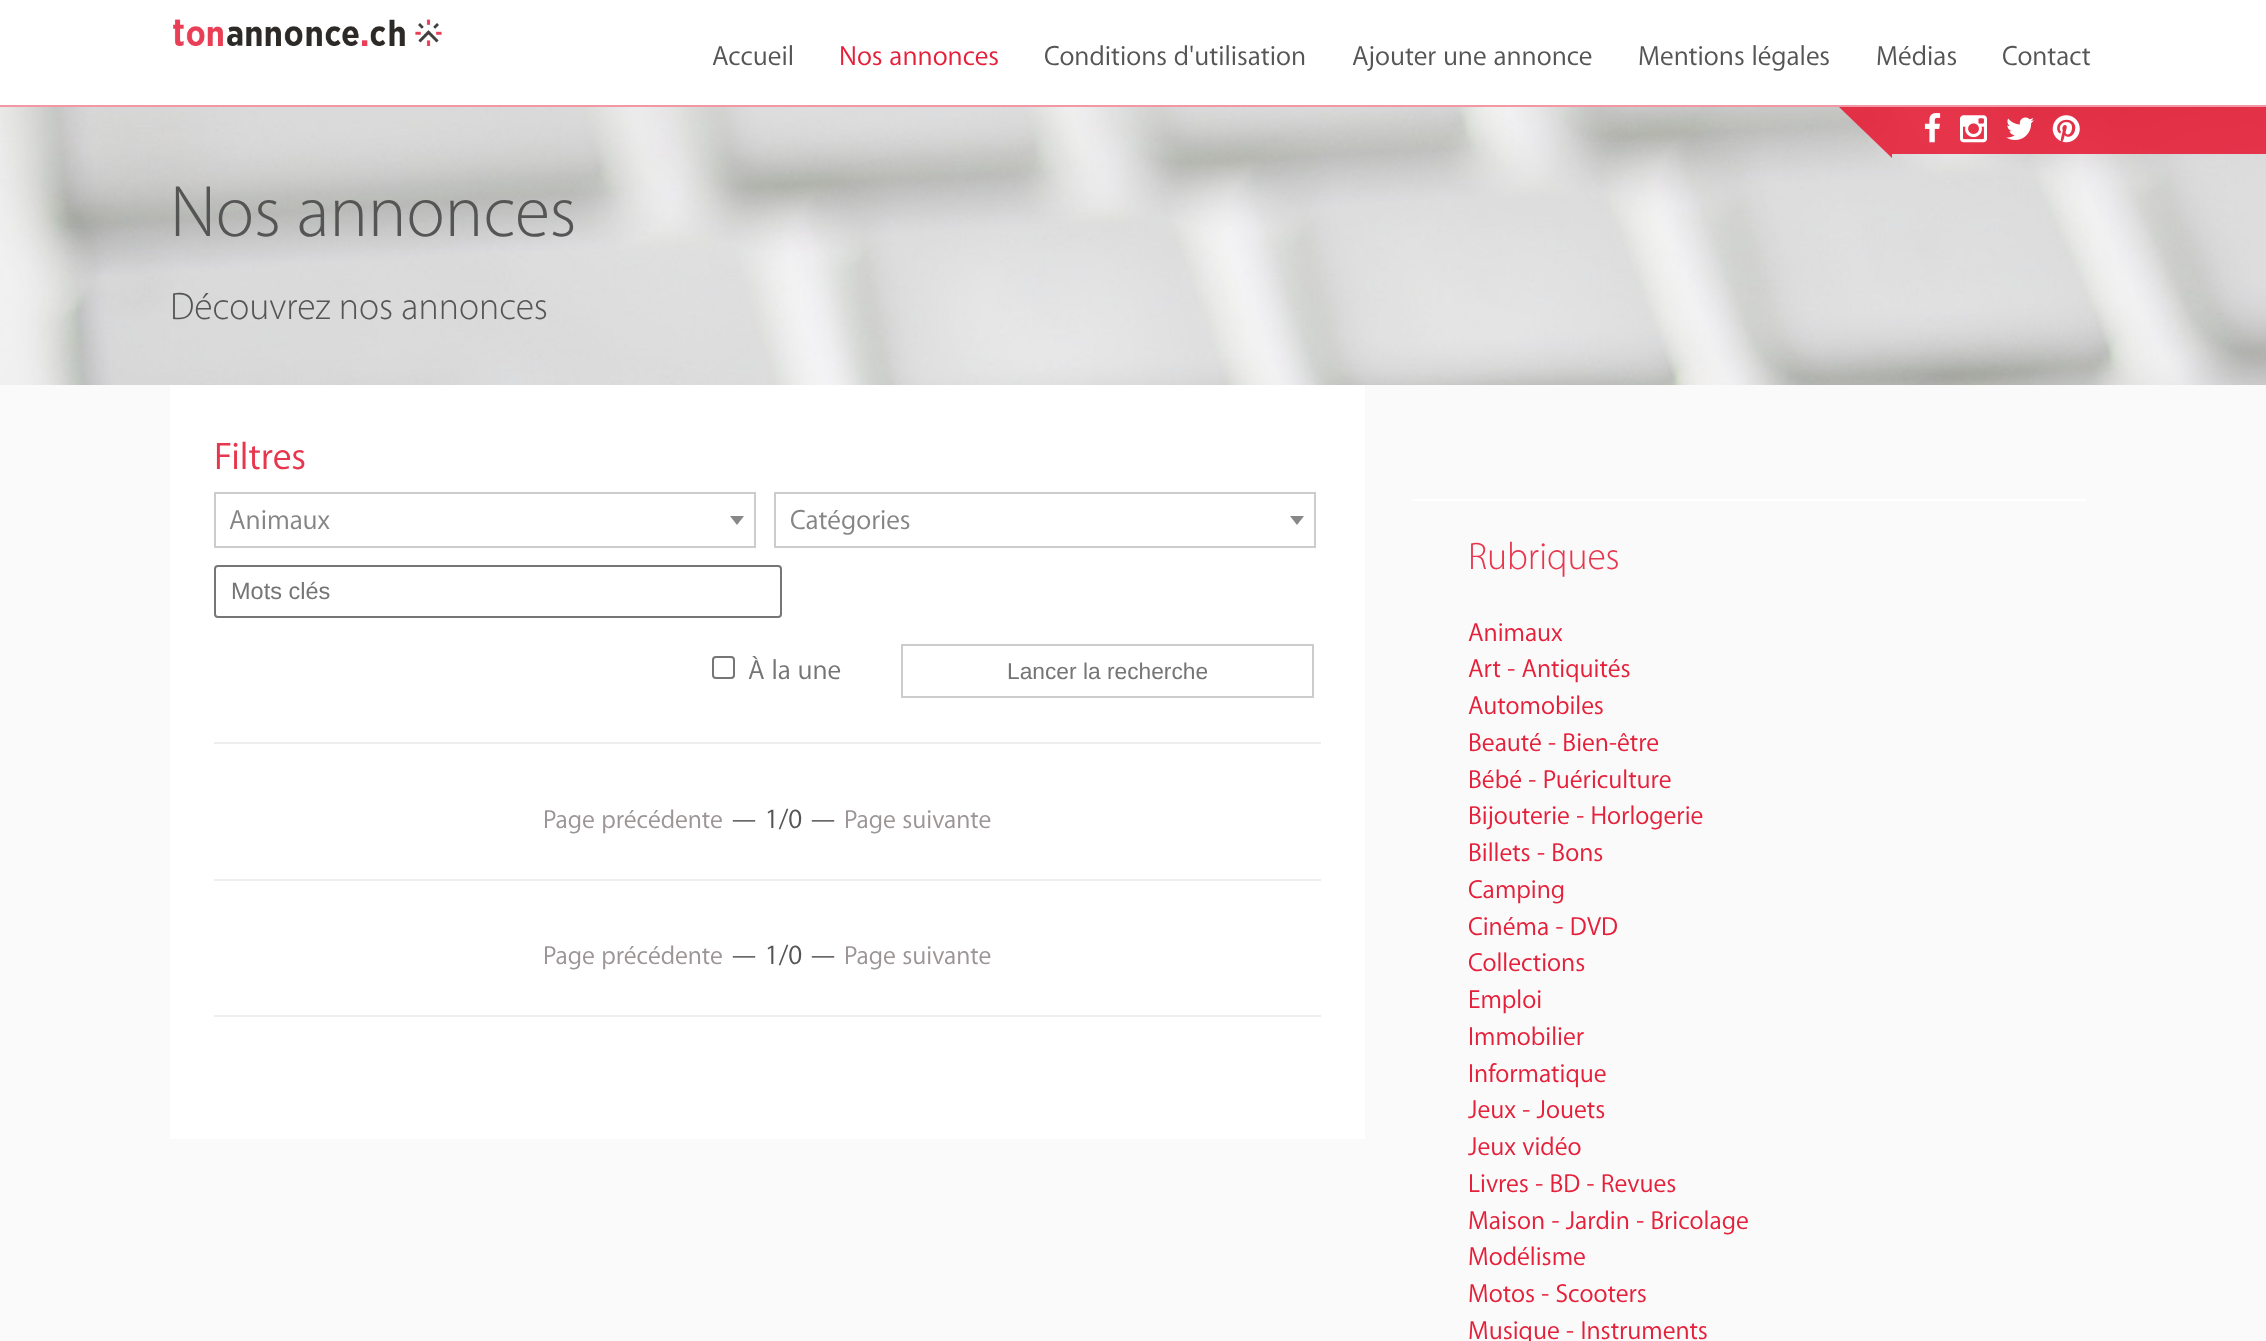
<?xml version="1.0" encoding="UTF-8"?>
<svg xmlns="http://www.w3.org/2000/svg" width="2266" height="1341">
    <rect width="100%" height="100%" fill="#FFFFFF"/>
    <image x="0" y="105" width="2266" height="280" href="img_06.png"/>
    <rect x="0" y="105" width="2266" height="2" fill="#FFFFFF" fill-opacity="0.95"/>
    <rect x="0" y="105" width="2266" height="2" fill="#E5203A" fill-opacity="0.46"/>
    <image x="173" y="19" width="269" height="27" href="img_01.png"/>
    <text x="712" y="65" font-family="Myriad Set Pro" font-size="28" fill="#555555">Accueil</text>
    <text x="839" y="65" font-family="Myriad Set Pro" font-size="28" fill="#E5203A">Nos annonces</text>
    <text x="1044" y="65" font-family="Myriad Set Pro" font-size="28" fill="#555555">Conditions d'utilisation</text>
    <text x="1352" y="65" font-family="Myriad Set Pro" font-size="28" fill="#555555">Ajouter une annonce</text>
    <text x="1638" y="65" font-family="Myriad Set Pro" font-size="28" fill="#555555">Mentions légales</text>
    <text x="1876" y="65" font-family="Myriad Set Pro" font-size="28" fill="#555555">Médias</text>
    <text x="2002" y="65" font-family="Myriad Set Pro" font-size="28" fill="#555555">Contact</text>
    <rect x="1892" y="107" width="374" height="47" fill="#E5203A" fill-opacity="0.9"/>
    <path d="M 1839 107 H 1892 V 158 Z" fill="#E5203A" fill-opacity="0.9"/>
    <image x="1924" y="113" width="17" height="30" href="img_02.png"/>
    <image x="1960" y="115" width="27" height="28" href="img_03.png"/>
    <image x="2006" y="117" width="28" height="23" href="img_04.png"/>
    <image x="2052" y="115" width="28" height="28" href="img_05.png"/>
    <text x="170" y="236" font-family="Myriad Set Pro" font-size="73.5" font-weight="100" fill="#555555">Nos annonces</text>
    <text x="170" y="319" font-family="Myriad Set Pro" font-size="38.5" font-weight="100" fill="#555555">Découvrez nos annonces</text>
    <rect x="0" y="385" width="2266" height="956" fill="#FAFAFA"/>
    <rect x="170" y="385" width="1195" height="754" fill="#FFFFFF"/>
    <rect x="214" y="742" width="1107" height="2" fill="#EEEEEE"/>
    <text x="214" y="469" font-family="Myriad Set Pro" font-size="38.5" fill="#E8364E">Filtres</text>
    <rect x="215" y="493" width="540" height="54" fill="none" stroke="#CCCCCC" stroke-width="2"/>
    <text x="229" y="529" font-family="Myriad Set Pro" font-size="28" fill="#858585">Animaux</text>
    <path d="M 730 516 H 744 L 737 525 Z" fill="#888888"/>
    <rect x="775" y="493" width="540" height="54" fill="none" stroke="#CCCCCC" stroke-width="2"/>
    <text x="790" y="529" font-family="Myriad Set Pro" font-size="28" fill="#858585">Catégories</text>
    <path d="M 1290 516 H 1304 L 1297 525 Z" fill="#888888"/>
    <rect x="215" y="566" width="566" height="51" rx="3" fill="none" stroke="#767676" stroke-width="2"/>
    <text x="231" y="599" font-family="Liberation Sans" font-size="23.5" fill="#757575">Mots clés</text>
    <rect x="713" y="657" width="21" height="21" rx="3" fill="none" stroke="#767676" stroke-width="2"/>
    <text x="748" y="679" font-family="Myriad Set Pro" font-size="28" fill="#757575">À la une</text>
    <rect x="902" y="645" width="411" height="52" fill="none" stroke="#CCCCCC" stroke-width="2"/>
    <text x="1007" y="679" font-family="Liberation Sans" font-size="22.75" fill="#757575">Lancer la recherche</text>
    <rect x="214" y="879" width="1107" height="2" fill="#EEEEEE"/>
    <text x="543" y="828" font-family="Myriad Set Pro" font-size="26.25" fill="#9C9596">Page précédente</text>
    <text x="730" y="828" font-family="Myriad Set Pro" font-size="28" fill="#555555">— 1/0 —</text>
    <text x="844" y="828" font-family="Myriad Set Pro" font-size="26.25" fill="#9C9596">Page suivante</text>
    <rect x="214" y="1015" width="1107" height="2" fill="#EEEEEE"/>
    <text x="543" y="964" font-family="Myriad Set Pro" font-size="26.25" fill="#9C9596">Page précédente</text>
    <text x="730" y="964" font-family="Myriad Set Pro" font-size="28" fill="#555555">— 1/0 —</text>
    <text x="844" y="964" font-family="Myriad Set Pro" font-size="26.25" fill="#9C9596">Page suivante</text>
    <rect x="1412" y="499" width="674" height="2" fill="#FFFFFF"/>
    <text x="1468" y="569" font-family="Myriad Set Pro" font-size="38.5" font-weight="100" fill="#E8364E">Rubriques</text>
    <text font-family="Myriad Set Pro" font-size="26.25" fill="#E5203A">
        <tspan x="1468" y="641">Animaux</tspan>
        <tspan x="1468" y="677">Art - Antiquités</tspan>
        <tspan x="1468" y="714">Automobiles</tspan>
        <tspan x="1468" y="751">Beauté - Bien-être</tspan>
        <tspan x="1468" y="788">Bébé - Puériculture</tspan>
        <tspan x="1468" y="824">Bijouterie - Horlogerie</tspan>
        <tspan x="1468" y="861">Billets - Bons</tspan>
        <tspan x="1468" y="898">Camping</tspan>
        <tspan x="1468" y="935">Cinéma - DVD</tspan>
        <tspan x="1468" y="971">Collections</tspan>
        <tspan x="1468" y="1008">Emploi</tspan>
        <tspan x="1468" y="1045">Immobilier</tspan>
        <tspan x="1468" y="1082">Informatique</tspan>
        <tspan x="1468" y="1118">Jeux - Jouets</tspan>
        <tspan x="1468" y="1155">Jeux vidéo</tspan>
        <tspan x="1468" y="1192">Livres - BD - Revues</tspan>
        <tspan x="1468" y="1229">Maison - Jardin - Bricolage</tspan>
        <tspan x="1468" y="1265">Modélisme</tspan>
        <tspan x="1468" y="1302">Motos - Scooters</tspan>
        <tspan x="1468" y="1339">Musique - Instruments</tspan>
    </text>
</svg>
